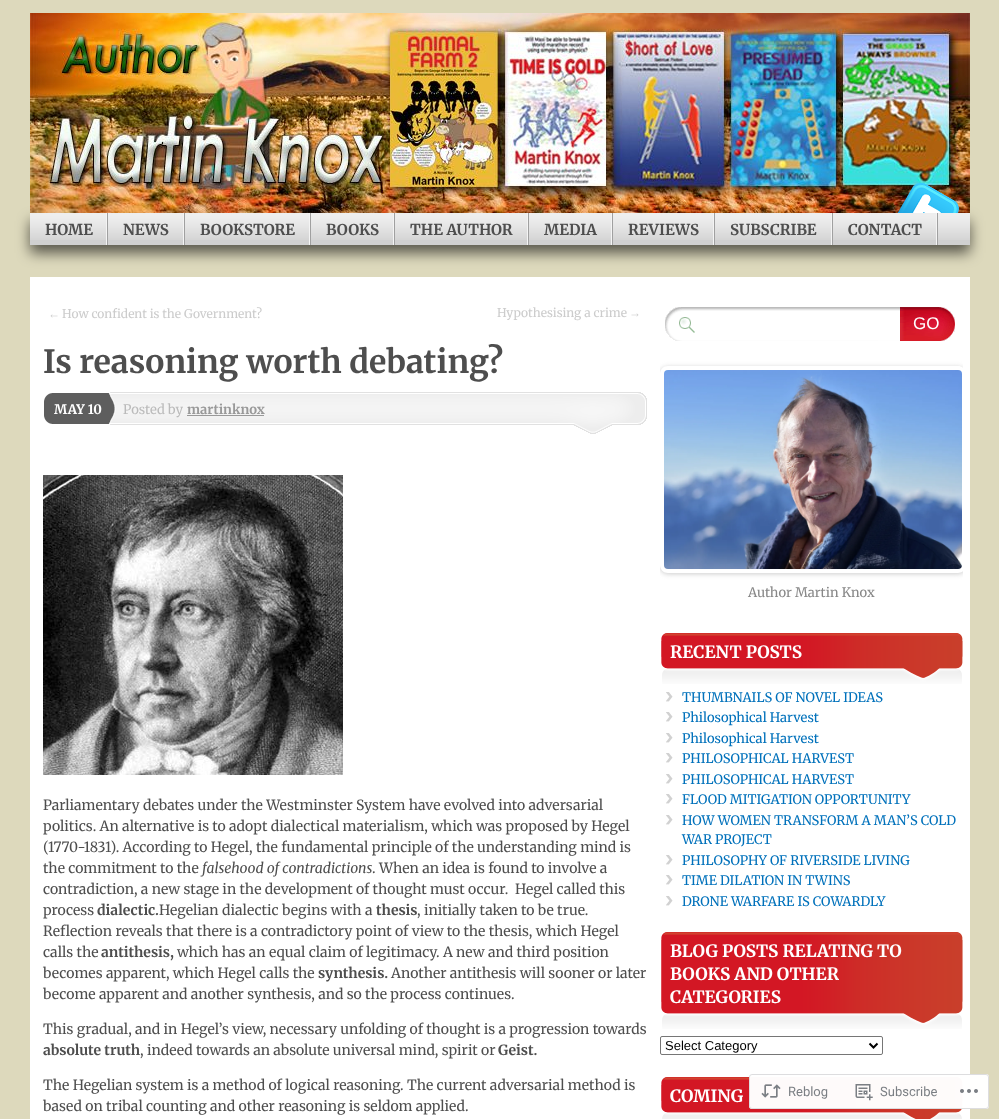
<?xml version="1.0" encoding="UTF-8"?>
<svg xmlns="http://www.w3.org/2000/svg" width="999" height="1119">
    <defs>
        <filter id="blur1" x="-50%" y="-200%" width="200%" height="500%"><feGaussianBlur stdDeviation="7"/></filter>
        <clipPath id="clip1"><rect x="43" y="444" width="604" height="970"/></clipPath>
        <clipPath id="clip2"><rect x="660" y="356" width="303" height="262"/></clipPath>
        <clipPath id="clip3"><path d="M 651 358 H 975 V 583 H 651 Z M 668 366 H 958 C 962.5 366 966 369.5 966 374 V 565 C 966 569.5 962.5 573 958 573 H 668 C 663.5 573 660 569.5 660 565 V 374 C 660 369.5 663.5 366 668 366 Z" clip-rule="evenodd"/></clipPath>
        <filter id="blur2" x="-50%" y="-200%" width="200%" height="500%"><feGaussianBlur stdDeviation="2.5"/></filter>
    </defs>
    <rect width="100%" height="100%" fill="#DDD9BC"/>
    <image x="30" y="13" width="940" height="200" href="img_01.png"/>
    <rect x="30" y="221" width="940" height="32" fill="#000000" fill-opacity="0.6" filter="url(#blur1)"/>
    <rect x="30" y="240" width="940" height="5" fill="#D0D0D0"/>
    <image x="897" y="183" width="62" height="30" href="img_02.png"/>
    <image x="30" y="213" width="940" height="27" href="img_03.png"/>
    <image x="106" y="213" width="2" height="32" href="img_04.png"/>
    <text x="45" y="235" font-family="Merriweather" font-size="15" font-weight="700" fill="#4E4E4E">HOME</text>
    <image x="183" y="213" width="2" height="32" href="img_04.png"/>
    <text x="123" y="235" font-family="Merriweather" font-size="15" font-weight="700" fill="#4E4E4E">NEWS</text>
    <image x="309" y="213" width="2" height="32" href="img_04.png"/>
    <text x="200" y="235" font-family="Merriweather" font-size="15" font-weight="700" fill="#4E4E4E">BOOKSTORE</text>
    <image x="393" y="213" width="2" height="32" href="img_04.png"/>
    <text x="326" y="235" font-family="Merriweather" font-size="15" font-weight="700" fill="#4E4E4E">BOOKS</text>
    <image x="527" y="213" width="2" height="32" href="img_04.png"/>
    <text x="410" y="235" font-family="Merriweather" font-size="15" font-weight="700" fill="#4E4E4E">THE AUTHOR</text>
    <image x="611" y="213" width="2" height="32" href="img_04.png"/>
    <text x="544" y="235" font-family="Merriweather" font-size="15" font-weight="700" fill="#4E4E4E">MEDIA</text>
    <image x="713" y="213" width="2" height="32" href="img_04.png"/>
    <text x="628" y="235" font-family="Merriweather" font-size="15" font-weight="700" fill="#4E4E4E">REVIEWS</text>
    <image x="831" y="213" width="2" height="32" href="img_04.png"/>
    <text x="730" y="235" font-family="Merriweather" font-size="15" font-weight="700" fill="#4E4E4E">SUBSCRIBE</text>
    <image x="936" y="213" width="2" height="32" href="img_04.png"/>
    <text x="848" y="235" font-family="Merriweather" font-size="15" font-weight="700" fill="#4E4E4E">CONTACT</text>
    <rect x="30" y="277" width="940" height="842" fill="#FFFFFF"/>
    <text x="48" y="318" font-family="Liberation Serif" font-size="12" fill="#CCCCCC">←</text>
    <text x="62" y="318" font-family="Merriweather" font-size="12" fill="#CCCCCC">How confident is the Government?</text>
    <text x="497" y="317" font-family="Merriweather" font-size="12" fill="#CCCCCC">Hypothesising a crime</text>
    <text x="629" y="317" font-family="Liberation Serif" font-size="12" fill="#CCCCCC">→</text>
    <text x="43" y="373" font-family="Merriweather" font-size="32" font-weight="700" fill="#4E4E4E">Is reasoning worth debating?</text>
    <image x="44" y="393" width="10" height="31" href="img_05.png"/>
    <image x="54" y="392" width="63" height="33" href="img_06.png"/>
    <text x="54" y="414" font-family="Merriweather" font-size="13" font-weight="700" fill="#FFFFFF">MAY 10</text>
    <image x="117" y="392" width="530" height="42" href="img_07.png"/>
    <text x="123" y="414" font-family="Merriweather" font-size="13" fill="#BBBBBB">Posted by</text>
    <text x="187" y="414" font-family="Merriweather" font-size="13" font-weight="700" fill="#999999">martinknox</text>
    <rect x="187" y="415" width="77" height="1" fill="#999999"/>
    <image x="43" y="475" width="300" height="300" href="img_08.png"/>
    <text x="43" y="810" font-family="Merriweather" font-size="14" fill="#4E4E4E">Parliamentary debates under the Westminster System have evolved into adversarial</text>
    <g clip-path="url(#clip1)">
        <text x="43" y="831" font-family="Merriweather" font-size="14" fill="#4E4E4E">politics. An alternative is to adopt dialectical materialism, which was proposed by Hegel</text>
    </g>
    <text font-family="Merriweather" font-size="14" fill="#4E4E4E">
        <tspan x="43" y="852">(1770-1831). According to Hegel, the fundamental principle of the understanding mind is</tspan>
        <tspan x="43" y="873">the commitment to the</tspan>
    </text>
    <text x="202" y="873" font-family="Merriweather" font-size="14" font-style="italic" fill="#4E4E4E">falsehood of contradictions</text>
    <text x="372" y="873" font-family="Merriweather" font-size="14" fill="#4E4E4E">. When an idea is found to involve a</text>
    <text x="43" y="894" font-family="Merriweather" font-size="14" fill="#4E4E4E" xml:space="preserve">contradiction, a new stage in the development of thought must occur.  Hegel called this</text>
    <g clip-path="url(#clip1)">
        <text x="43" y="915" font-family="Merriweather" font-size="14" fill="#4E4E4E">process</text>
    </g>
    <text x="97" y="915" font-family="Merriweather" font-size="14" font-weight="700" fill="#4E4E4E">dialectic.</text>
    <text x="159" y="915" font-family="Merriweather" font-size="14" fill="#4E4E4E">Hegelian dialectic begins with a</text>
    <text x="376" y="915" font-family="Merriweather" font-size="14" font-weight="700" fill="#4E4E4E">thesis</text>
    <text x="417" y="915" font-family="Merriweather" font-size="14" fill="#4E4E4E">, initially taken to be true.</text>
    <text font-family="Merriweather" font-size="14" fill="#4E4E4E">
        <tspan x="43" y="936">Reflection reveals that there is a contradictory point of view to the thesis, which Hegel</tspan>
        <tspan x="43" y="957">calls the</tspan>
    </text>
    <text x="101" y="957" font-family="Merriweather" font-size="14" font-weight="700" fill="#4E4E4E">antithesis,</text>
    <text x="177" y="957" font-family="Merriweather" font-size="14" fill="#4E4E4E">which has an equal claim of legitimacy. A new and third position</text>
    <text x="43" y="978" font-family="Merriweather" font-size="14" fill="#4E4E4E">becomes apparent, which Hegel calls the</text>
    <text x="318" y="978" font-family="Merriweather" font-size="14" font-weight="700" fill="#4E4E4E">synthesis.</text>
    <text x="391" y="978" font-family="Merriweather" font-size="14" fill="#4E4E4E">Another antithesis will sooner or later</text>
    <text x="43" y="999" font-family="Merriweather" font-size="14" fill="#4E4E4E">become apparent and another synthesis, and so the process continues.</text>
    <g clip-path="url(#clip1)">
        <text x="43" y="1034" font-family="Merriweather" font-size="14" fill="#4E4E4E">This gradual, and in Hegel’s view, necessary unfolding of thought is a progression towards</text>
    </g>
    <text x="43" y="1055" font-family="Merriweather" font-size="14" font-weight="700" fill="#4E4E4E">absolute truth</text>
    <text x="140" y="1055" font-family="Merriweather" font-size="14" fill="#4E4E4E">, indeed towards an absolute universal mind, spirit or</text>
    <text x="498" y="1055" font-family="Merriweather" font-size="14" font-weight="700" fill="#4E4E4E">Geist.</text>
    <g clip-path="url(#clip1)">
        <text x="43" y="1090" font-family="Merriweather" font-size="14" fill="#4E4E4E">The Hegelian system is a method of logical reasoning. The current adversarial method is</text>
    </g>
    <text x="43" y="1111" font-family="Merriweather" font-size="14" fill="#4E4E4E">based on tribal counting and other reasoning is seldom applied.</text>
    <image x="665" y="307" width="235" height="34" href="img_09.png"/>
    <image x="900" y="307" width="55" height="34" href="img_10.png"/>
    <text x="913" y="329" font-family="Liberation Sans" font-size="17" fill="#FFFFFF">GO</text>
    <g clip-path="url(#clip2)">
        <g clip-path="url(#clip3)">
            <rect x="660" y="367" width="306" height="207" rx="8" fill="#CCCCCC" filter="url(#blur2)"/>
        </g>
    </g>
    <image x="664" y="370" width="298" height="199" href="img_11.png"/>
    <text x="748" y="597" font-family="Merriweather" font-size="13" fill="#888888">Author Martin Knox</text>
    <image x="661" y="633" width="302" height="8" href="img_12.png"/>
    <image x="661" y="641" width="302" height="43" href="img_13.png"/>
    <text x="670" y="658" font-family="Merriweather" font-size="17" font-weight="700" fill="#FFFFFF">RECENT POSTS</text>
    <image x="666" y="692" width="7" height="10" href="img_14.png"/>
    <text x="682" y="702" font-family="Merriweather" font-size="13" fill="#0071BB">THUMBNAILS OF NOVEL IDEAS</text>
    <image x="666" y="712" width="7" height="10" href="img_14.png"/>
    <text x="682" y="722" font-family="Merriweather" font-size="13" fill="#0071BB">Philosophical Harvest</text>
    <image x="666" y="733" width="7" height="10" href="img_14.png"/>
    <text x="682" y="743" font-family="Merriweather" font-size="13" fill="#0071BB">Philosophical Harvest</text>
    <image x="666" y="753" width="7" height="10" href="img_14.png"/>
    <text x="682" y="763" font-family="Merriweather" font-size="13" fill="#0071BB">PHILOSOPHICAL HARVEST</text>
    <image x="666" y="774" width="7" height="10" href="img_14.png"/>
    <text x="682" y="784" font-family="Merriweather" font-size="13" fill="#0071BB">PHILOSOPHICAL HARVEST</text>
    <image x="666" y="794" width="7" height="10" href="img_14.png"/>
    <text x="682" y="804" font-family="Merriweather" font-size="13" fill="#0071BB">FLOOD MITIGATION OPPORTUNITY</text>
    <image x="666" y="815" width="7" height="10" href="img_14.png"/>
    <text font-family="Merriweather" font-size="13" fill="#0071BB">
        <tspan x="682" y="825">HOW WOMEN TRANSFORM A MAN’S COLD</tspan>
        <tspan x="682" y="844">WAR PROJECT</tspan>
    </text>
    <image x="666" y="855" width="7" height="10" href="img_14.png"/>
    <text x="682" y="865" font-family="Merriweather" font-size="13" fill="#0071BB">PHILOSOPHY OF RIVERSIDE LIVING</text>
    <image x="666" y="875" width="7" height="10" href="img_14.png"/>
    <text x="682" y="885" font-family="Merriweather" font-size="13" fill="#0071BB">TIME DILATION IN TWINS</text>
    <image x="666" y="896" width="7" height="10" href="img_14.png"/>
    <text x="682" y="906" font-family="Merriweather" font-size="13" fill="#0071BB">DRONE WARFARE IS COWARDLY</text>
    <image x="661" y="932" width="302" height="8" href="img_12.png"/>
    <image x="661" y="940" width="302" height="89" href="img_15.png"/>
    <text font-family="Merriweather" font-size="17" font-weight="700" fill="#FFFFFF">
        <tspan x="670" y="957">BLOG POSTS RELATING TO</tspan>
        <tspan x="670" y="980">BOOKS AND OTHER</tspan>
        <tspan x="670" y="1003">CATEGORIES</tspan>
    </text>
    <rect x="660.5" y="1036.5" width="222" height="18" rx="1.5" fill="none" stroke="#767676"/>
    <path d="M 869.5 1043.5 L 873.5 1047.5 L 877.5 1043.5" fill="none" stroke="#000000" stroke-width="2"/>
    <text x="665" y="1050" font-family="Liberation Sans" font-size="13" fill="#000000">Select Category</text>
    <image x="661" y="1077" width="302" height="8" href="img_12.png"/>
    <image x="661" y="1085" width="302" height="34" href="img_16.png"/>
    <text x="670" y="1102" font-family="Merriweather" font-size="17" font-weight="700" fill="#FFFFFF">COMING</text>
    <rect x="749" y="1074" width="240" height="35" rx="3" fill="#FFFFFF" fill-opacity="0.98"/>
    <rect x="749.5" y="1074.5" width="239" height="34" rx="2.5" fill="none" stroke="#DCDCDE" stroke-opacity="0.98"/>
    <image x="761" y="1084" width="20" height="14" href="img_17.png"/>
    <text x="788" y="1096" font-family="Roboto" font-size="13" fill="#7B7F84">Reblog</text>
    <image x="855" y="1084" width="18" height="17" href="img_18.png"/>
    <text x="880" y="1096" font-family="Roboto" font-size="13" fill="#7B7F84">Subscribe</text>
    <image x="960" y="1089" width="18" height="4" href="img_19.png"/>
</svg>
